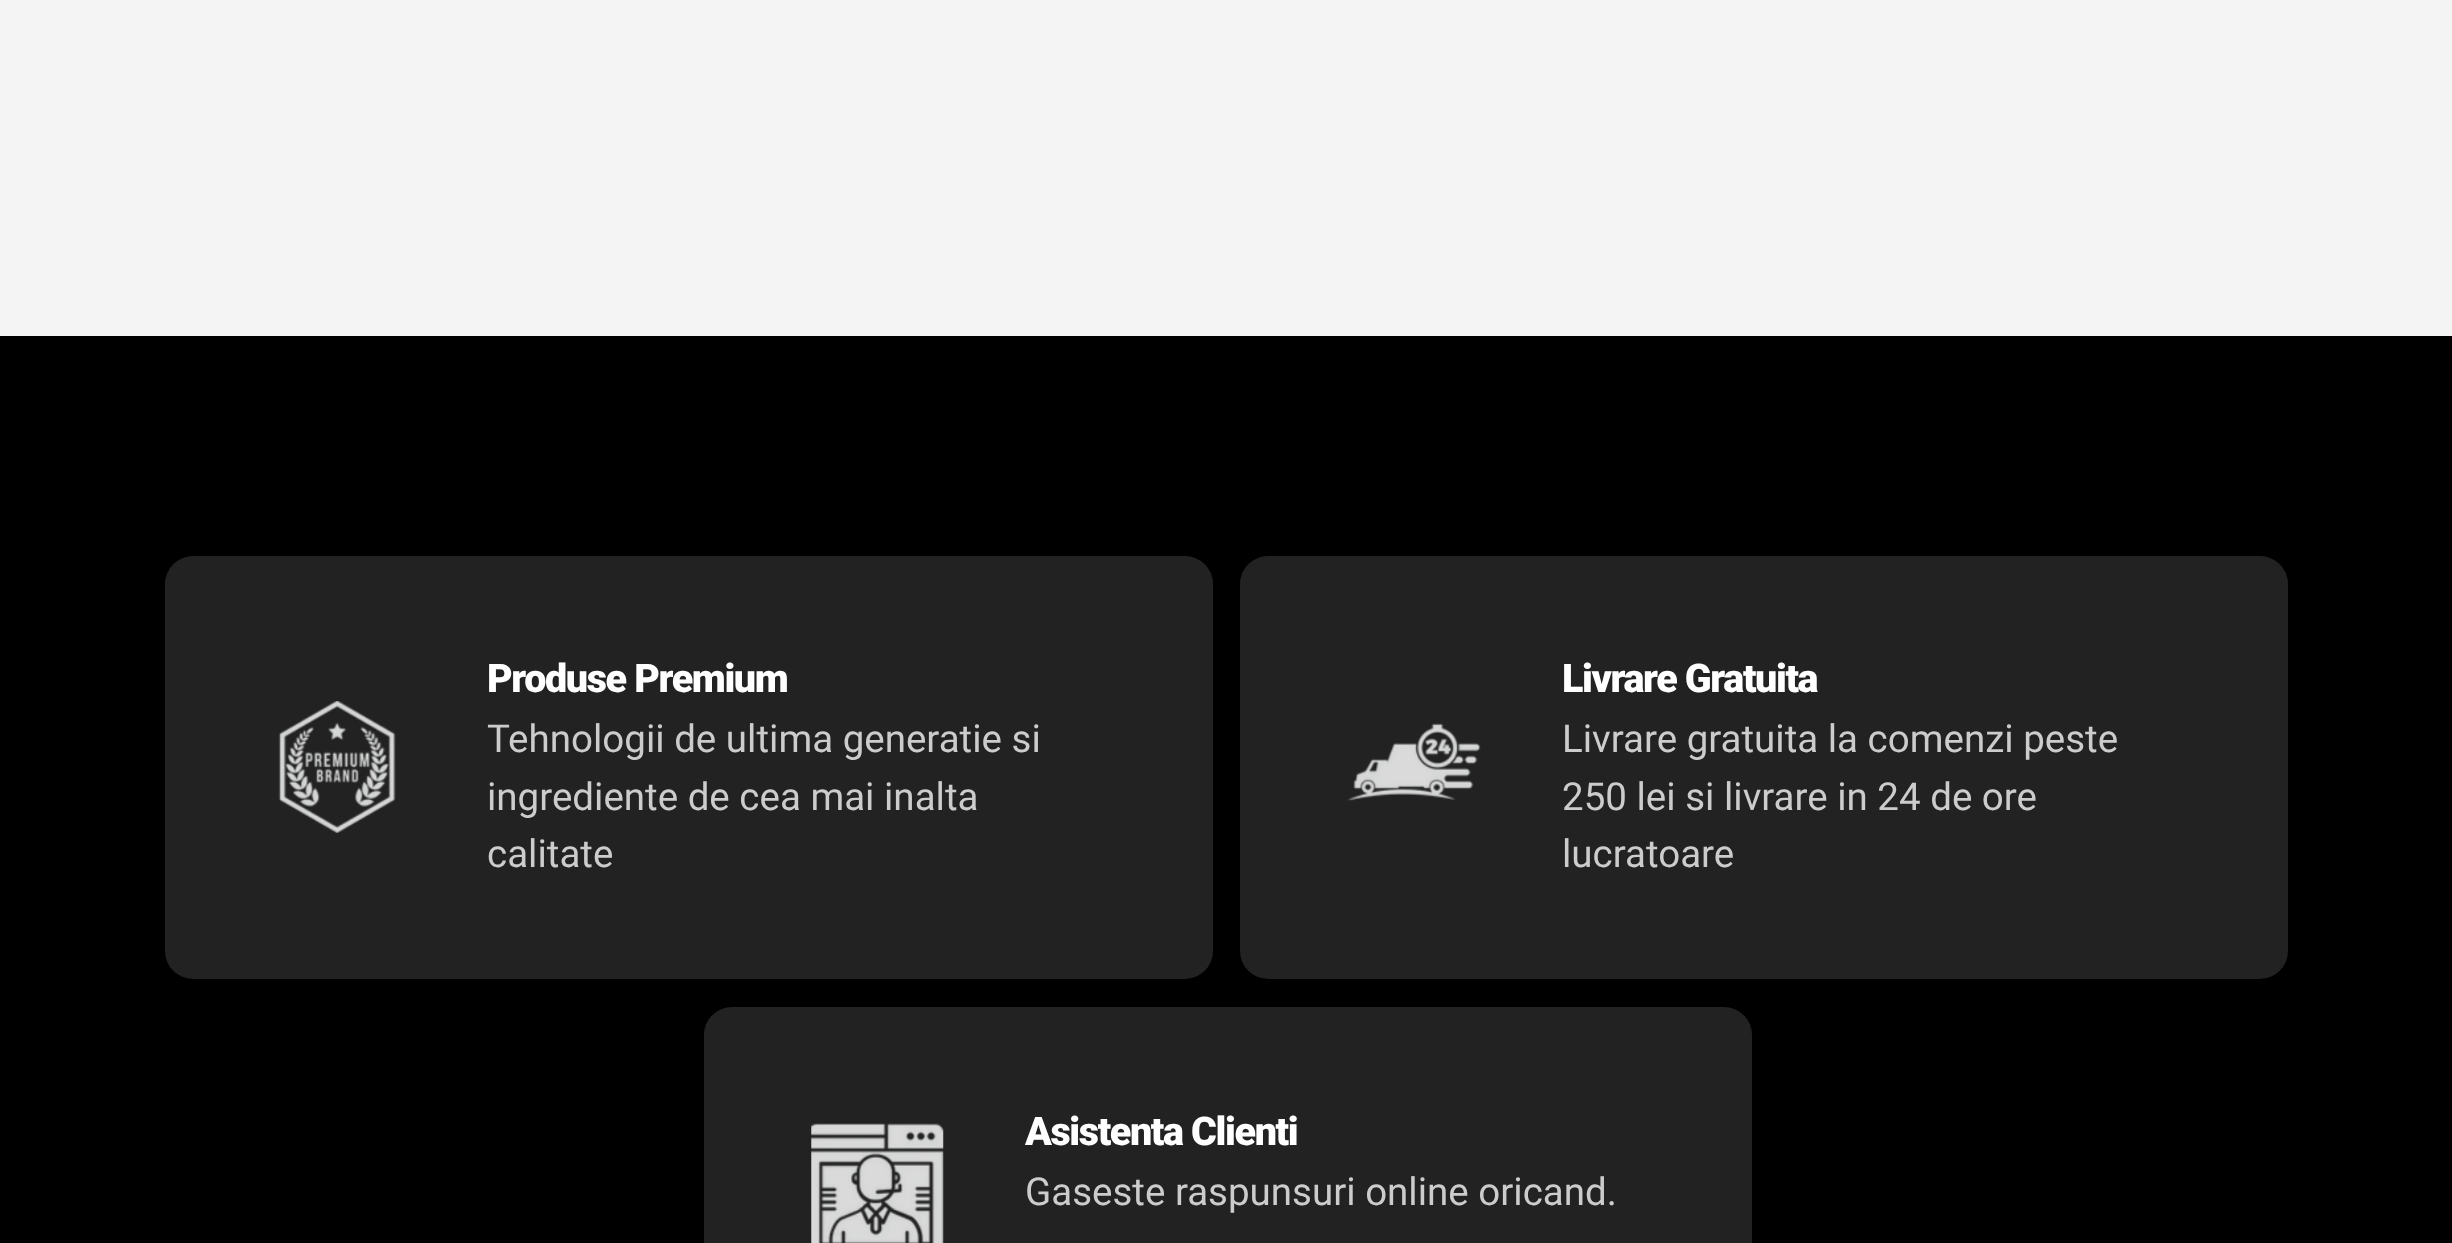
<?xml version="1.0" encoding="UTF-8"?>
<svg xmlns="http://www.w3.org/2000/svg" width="2452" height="1243">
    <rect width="100%" height="100%" fill="#F4F4F4"/>
    <rect x="0" y="336" width="2452" height="907" fill="#000000"/>
    <rect x="165" y="556" width="1048" height="423" rx="28" fill="#222222"/>
    <image x="278" y="701" width="118" height="132" href="img_01.png"/>
    <text x="487" y="692" font-family="Roboto" font-size="39.5" font-weight="900" letter-spacing="-1.4" fill="#FFFFFF">Produse Premium</text>
    <text font-family="Roboto" font-size="38.5" fill="#CCCCCC">
        <tspan x="487" y="752">Tehnologii de ultima generatie si</tspan>
        <tspan x="487" y="810">ingrediente de cea mai inalta</tspan>
        <tspan x="487" y="867">calitate</tspan>
    </text>
    <rect x="1240" y="556" width="1048" height="423" rx="28" fill="#222222"/>
    <image x="1347" y="723" width="134" height="79" href="img_02.png"/>
    <text x="1562" y="692" font-family="Roboto" font-size="39.5" font-weight="900" letter-spacing="-1.4" fill="#FFFFFF">Livrare Gratuita</text>
    <text font-family="Roboto" font-size="38.5" fill="#CCCCCC">
        <tspan x="1562" y="752">Livrare gratuita la comenzi peste</tspan>
        <tspan x="1562" y="810">250 lei si livrare in 24 de ore</tspan>
        <tspan x="1562" y="867">lucratoare</tspan>
    </text>
    <rect x="704" y="1007" width="1048" height="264" rx="28" fill="#222222"/>
    <image x="811" y="1123" width="133" height="120" href="img_03.png"/>
    <text x="1025" y="1145" font-family="Roboto" font-size="39.5" font-weight="900" letter-spacing="-1.4" fill="#FFFFFF">Asistenta Clienti</text>
    <text x="1025" y="1205" font-family="Roboto" font-size="38.5" fill="#CCCCCC">Gaseste raspunsuri online oricand.</text>
</svg>
